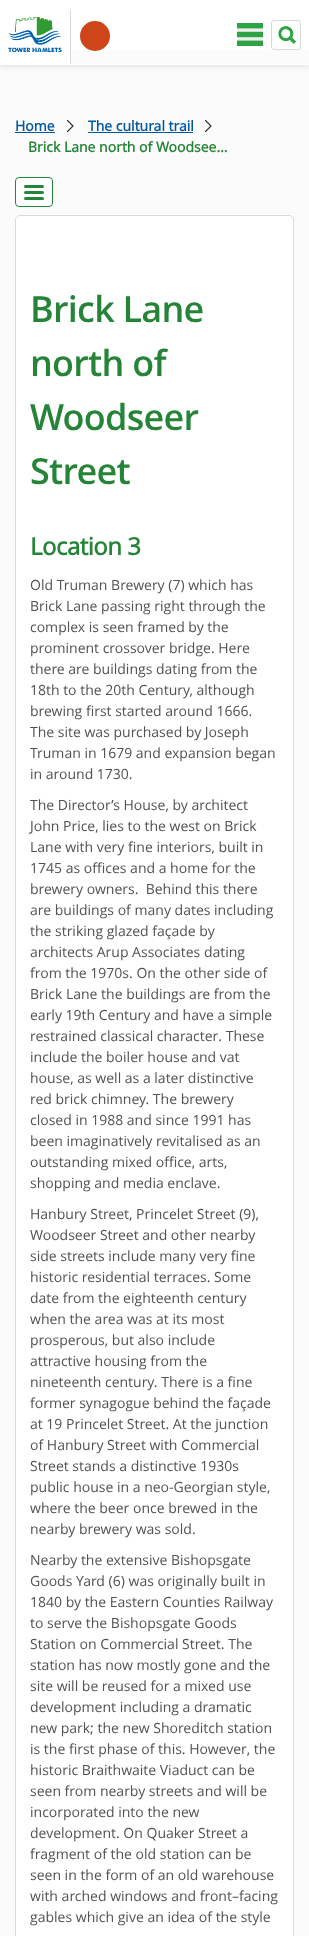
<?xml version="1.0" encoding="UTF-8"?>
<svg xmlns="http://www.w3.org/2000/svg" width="309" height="1936">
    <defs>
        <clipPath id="clip1"><rect x="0" y="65" width="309" height="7"/></clipPath>
        <filter id="blur1" x="-50%" y="-200%" width="200%" height="500%"><feGaussianBlur stdDeviation="3.5"/></filter>
    </defs>
    <rect width="100%" height="100%" fill="#FBFBFB"/>
    <g clip-path="url(#clip1)">
        <rect x="0" y="0" width="309" height="65" fill="#D1D1D1" filter="url(#blur1)"/>
    </g>
    <rect x="0" y="64" width="309" height="1" fill="#FFFFFF"/>
    <rect x="0" y="0" width="309" height="50" fill="#FFFFFF"/>
    <circle cx="95" cy="36" r="15" fill="#CD4518"/>
    <image x="237" y="23" width="26" height="23" href="img_01.png"/>
    <image x="276" y="26" width="20" height="18" href="img_02.png"/>
    <rect x="271.5" y="20.5" width="29" height="29" rx="2.5" fill="none" stroke="#D9D9D9"/>
    <rect x="0" y="50" width="70" height="14" fill="#FFFFFF"/>
    <rect x="70" y="10" width="1" height="54" fill="#D9D9D9"/>
    <image x="8" y="17" width="54" height="35" href="img_03.png"/>
    <image x="67" y="120" width="7" height="12" href="img_04.png"/>
    <text x="15" y="131" font-family="Open Sans" font-size="14" font-weight="700" fill="#00599F">Home</text>
    <rect x="15" y="132" width="40" height="1" fill="#00599F"/>
    <image x="205" y="120" width="7" height="12" href="img_04.png"/>
    <text x="88" y="131" font-family="Open Sans" font-size="14" font-weight="700" fill="#00599F">The cultural trail</text>
    <rect x="88" y="132" width="105" height="1" fill="#00599F"/>
    <text x="28" y="152" font-family="Open Sans" font-size="14" font-weight="700" fill="#258437">Brick Lane north of Woodsee…</text>
    <rect x="15.5" y="177.5" width="37" height="29" rx="3.5" fill="#FFFFFF" stroke="#258437"/>
    <rect x="24" y="191" width="20" height="3" rx="1.5" fill="#258437"/>
    <rect x="24" y="185" width="20" height="3" rx="1.5" fill="#258437"/>
    <rect x="24" y="197" width="20" height="3" rx="1.5" fill="#258437"/>
    <rect x="15.5" y="215.5" width="278" height="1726" rx="4.5" fill="#FFFFFF" stroke="#D9D9D9"/>
    <text font-family="Open Sans" font-size="36" font-weight="600" letter-spacing="-0.75" fill="#258437">
        <tspan x="30" y="322">Brick Lane</tspan>
        <tspan x="30" y="376">north of</tspan>
        <tspan x="30" y="430">Woodseer</tspan>
        <tspan x="30" y="484">Street</tspan>
    </text>
    <text x="30" y="555" font-family="Open Sans" font-size="24" font-weight="700" letter-spacing="-0.5" fill="#258437">Location 3</text>
    <text font-family="Open Sans" font-size="14" fill="#525252">
        <tspan x="30" y="590">Old Truman Brewery (7) which has</tspan>
        <tspan x="30" y="611">Brick Lane passing right through the</tspan>
        <tspan x="30" y="632">complex is seen framed by the</tspan>
        <tspan x="30" y="653">prominent crossover bridge. Here</tspan>
        <tspan x="30" y="674">there are buildings dating from the</tspan>
        <tspan x="30" y="695">18th to the 20th Century, although</tspan>
        <tspan x="30" y="716">brewing first started around 1666.</tspan>
        <tspan x="30" y="737">The site was purchased by Joseph</tspan>
        <tspan x="30" y="758">Truman in 1679 and expansion began</tspan>
        <tspan x="30" y="779">in around 1730.</tspan>
    </text>
    <text font-family="Open Sans" font-size="14" fill="#525252" xml:space="preserve"><tspan x="30" y="810">The Director’s House, by architect</tspan><tspan x="30" y="831">John Price, lies to the west on Brick</tspan><tspan x="30" y="852">Lane with very fine interiors, built in</tspan><tspan x="30" y="873">1745 as offices and a home for the</tspan><tspan x="30" y="894">brewery owners.  Behind this there</tspan><tspan x="30" y="915">are buildings of many dates including</tspan><tspan x="30" y="936">the striking glazed façade by</tspan><tspan x="30" y="957">architects Arup Associates dating</tspan><tspan x="30" y="978">from the 1970s. On the other side of</tspan><tspan x="30" y="999">Brick Lane the buildings are from the</tspan><tspan x="30" y="1020">early 19th Century and have a simple</tspan><tspan x="30" y="1041">restrained classical character. These</tspan><tspan x="30" y="1062">include the boiler house and vat</tspan><tspan x="30" y="1083">house, as well as a later distinctive</tspan><tspan x="30" y="1104">red brick chimney. The brewery</tspan><tspan x="30" y="1125">closed in 1988 and since 1991 has</tspan><tspan x="30" y="1146">been imaginatively revitalised as an</tspan><tspan x="30" y="1167">outstanding mixed office, arts,</tspan><tspan x="30" y="1188">shopping and media enclave.</tspan></text>
    <text font-family="Open Sans" font-size="14" fill="#525252">
        <tspan x="30" y="1219">Hanbury Street, Princelet Street (9),</tspan>
        <tspan x="30" y="1240">Woodseer Street and other nearby</tspan>
        <tspan x="30" y="1261">side streets include many very fine</tspan>
        <tspan x="30" y="1282">historic residential terraces. Some</tspan>
        <tspan x="30" y="1303">date from the eighteenth century</tspan>
        <tspan x="30" y="1324">when the area was at its most</tspan>
        <tspan x="30" y="1345">prosperous, but also include</tspan>
        <tspan x="30" y="1366">attractive housing from the</tspan>
        <tspan x="30" y="1387">nineteenth century. There is a fine</tspan>
        <tspan x="30" y="1408">former synagogue behind the façade</tspan>
        <tspan x="30" y="1429">at 19 Princelet Street. At the junction</tspan>
        <tspan x="30" y="1450">of Hanbury Street with Commercial</tspan>
        <tspan x="30" y="1471">Street stands a distinctive 1930s</tspan>
        <tspan x="30" y="1492">public house in a neo-Georgian style,</tspan>
        <tspan x="30" y="1513">where the beer once brewed in the</tspan>
        <tspan x="30" y="1534">nearby brewery was sold.</tspan>
    </text>
    <text font-family="Open Sans" font-size="14" fill="#525252">
        <tspan x="30" y="1565">Nearby the extensive Bishopsgate</tspan>
        <tspan x="30" y="1586">Goods Yard (6) was originally built in</tspan>
        <tspan x="30" y="1607">1840 by the Eastern Counties Railway</tspan>
        <tspan x="30" y="1628">to serve the Bishopsgate Goods</tspan>
        <tspan x="30" y="1649">Station on Commercial Street. The</tspan>
        <tspan x="30" y="1670">station has now mostly gone and the</tspan>
        <tspan x="30" y="1691">site will be reused for a mixed use</tspan>
        <tspan x="30" y="1712">development including a dramatic</tspan>
        <tspan x="30" y="1733">new park; the new Shoreditch station</tspan>
        <tspan x="30" y="1754">is the first phase of this. However, the</tspan>
        <tspan x="30" y="1775">historic Braithwaite Viaduct can be</tspan>
        <tspan x="30" y="1796">seen from nearby streets and will be</tspan>
        <tspan x="30" y="1817">incorporated into the new</tspan>
        <tspan x="30" y="1838">development. On Quaker Street a</tspan>
        <tspan x="30" y="1859">fragment of the old station can be</tspan>
        <tspan x="30" y="1880">seen in the form of an old warehouse</tspan>
        <tspan x="30" y="1901">with arched windows and front–facing</tspan>
        <tspan x="30" y="1922">gables which give an idea of the style</tspan>
    </text>
</svg>
